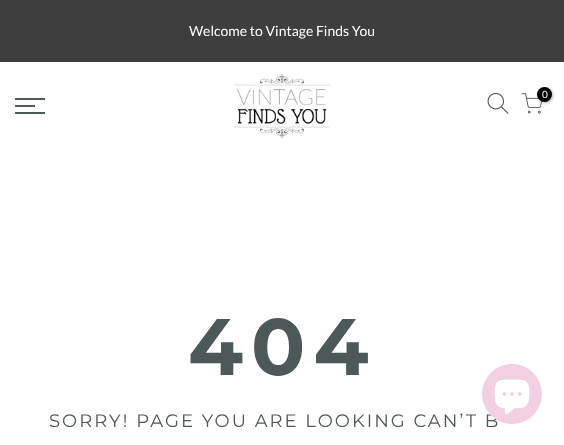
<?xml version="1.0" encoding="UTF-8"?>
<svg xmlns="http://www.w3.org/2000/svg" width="564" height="445">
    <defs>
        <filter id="blur1" x="-50%" y="-200%" width="200%" height="500%"><feGaussianBlur stdDeviation="1.5"/></filter>
    </defs>
    <rect width="100%" height="100%" fill="#FFFFFF"/>
    <rect x="0" y="0" width="564" height="62" fill="#3E3E3E"/>
    <text x="189" y="36" font-family="Lato" font-size="14" fill="#FFFFFF">Welcome to Vintage Finds You</text>
    <image x="234" y="74" width="96" height="65" href="img_01.png"/>
    <image x="487" y="92" width="22" height="22" href="img_02.png"/>
    <image x="521" y="93" width="21" height="21" href="img_03.png"/>
    <rect x="538" y="88" width="15" height="15" rx="7.5" fill="#000000" fill-opacity="0.3" filter="url(#blur1)"/>
    <circle cx="544.5" cy="94.5" r="7.5" fill="#000000"/>
    <text x="542" y="98" font-family="Lato" font-size="10" fill="#FFFFFF">0</text>
    <rect x="15" y="98" width="30" height="2" fill="#4D5959"/>
    <rect x="15" y="105" width="20" height="2" fill="#4D5959"/>
    <rect x="15" y="112" width="30" height="2" fill="#4D5959"/>
    <text x="188" y="375" font-family="Montserrat" font-size="80" font-weight="700" letter-spacing="8" fill="#4D5959">404</text>
    <text x="49" y="427" font-family="Montserrat" font-size="18" letter-spacing="2" fill="#4D5959">SORRY! PAGE YOU ARE LOOKING CAN’T B</text>
    <circle cx="512" cy="394" r="30" fill="#F2D0E1"/>
    <image x="494" y="379" width="36" height="36" href="img_04.png"/>
</svg>
